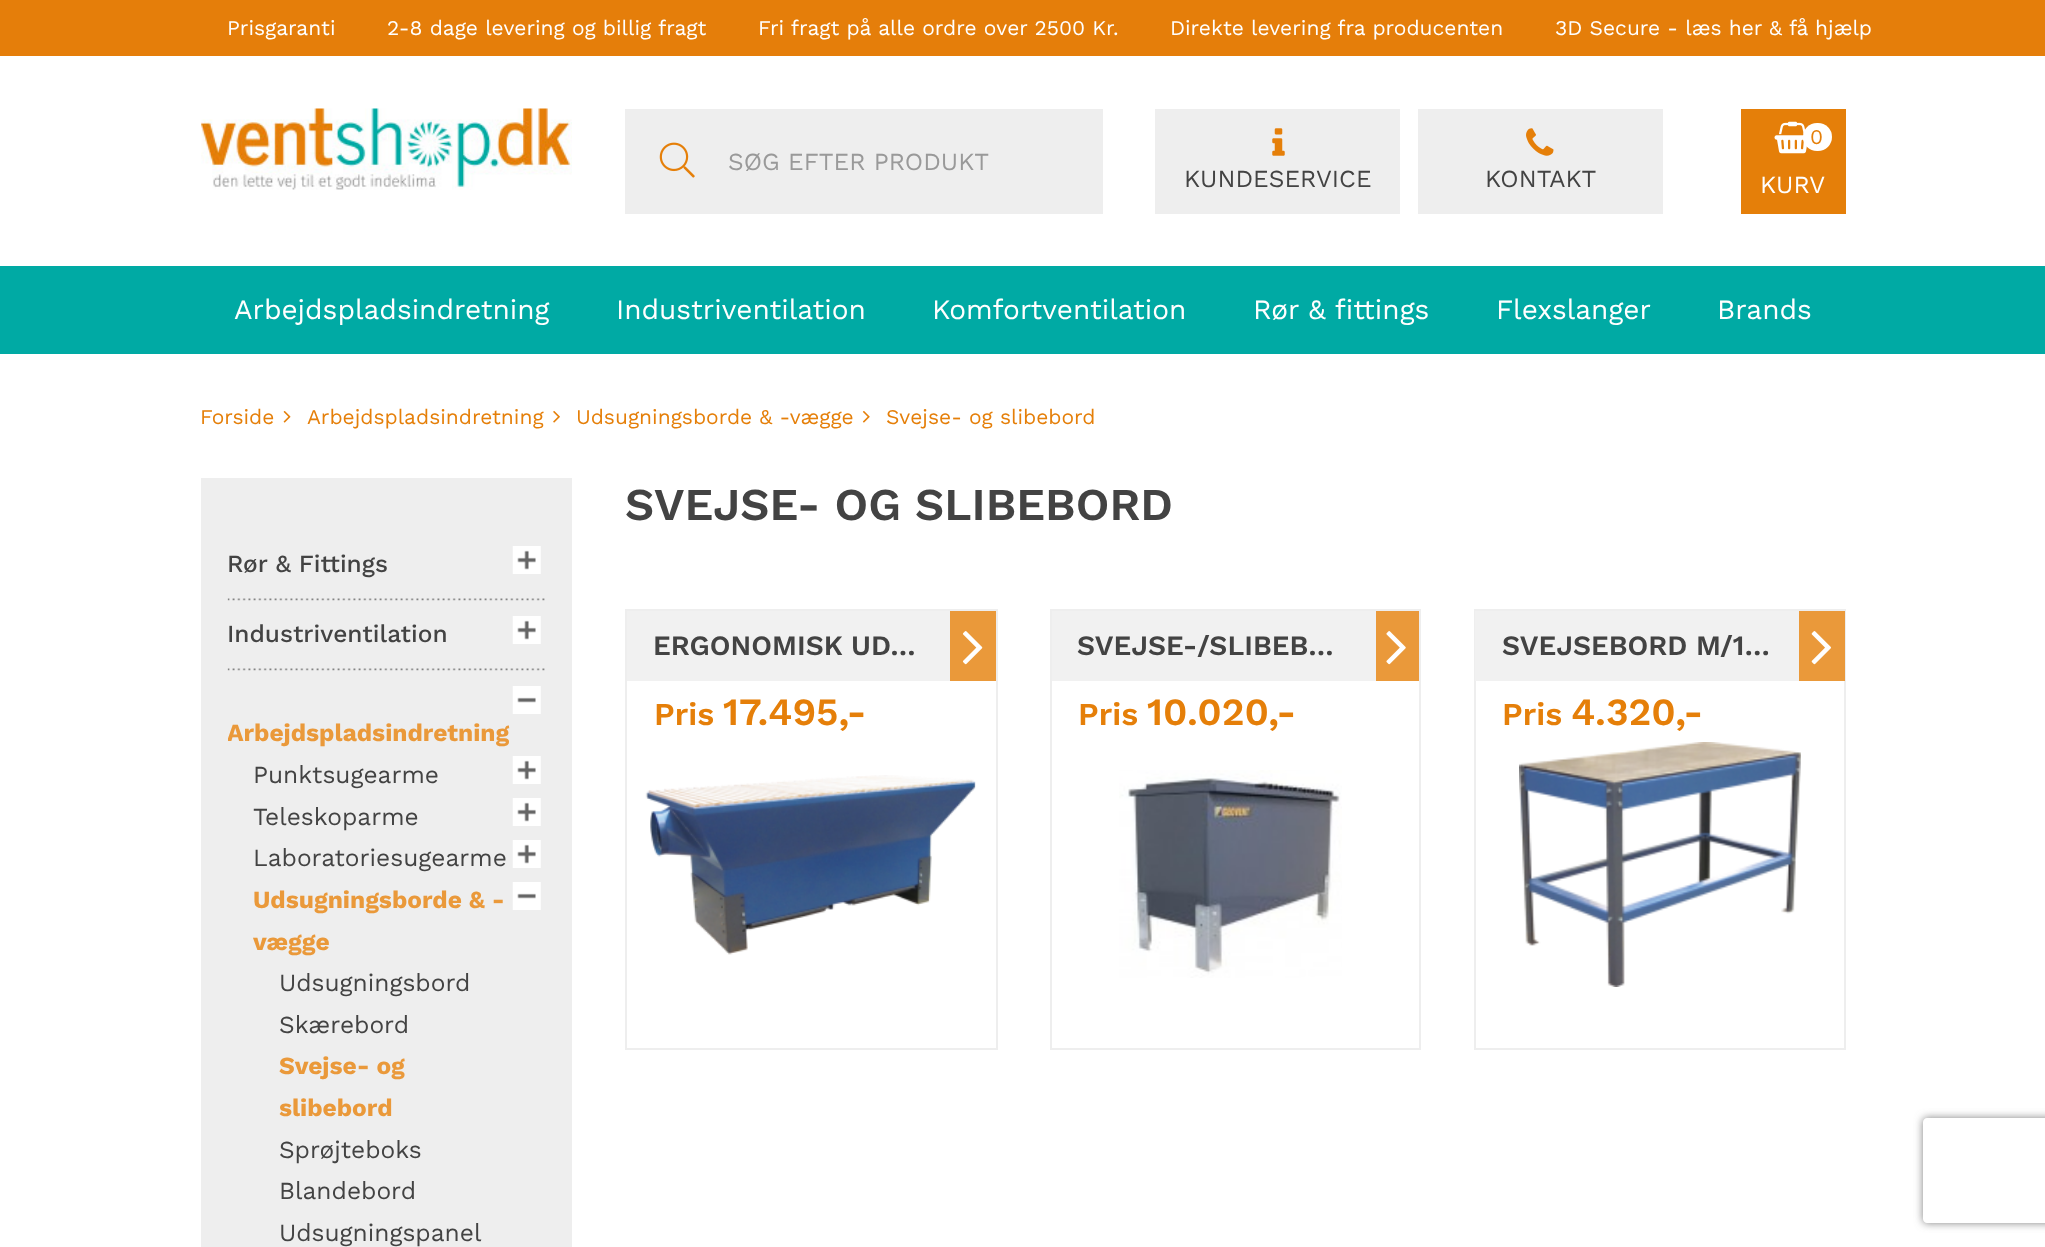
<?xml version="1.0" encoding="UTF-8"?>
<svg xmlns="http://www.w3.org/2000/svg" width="2045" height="1247">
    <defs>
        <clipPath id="clip1"><rect x="228" y="530" width="318" height="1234"/></clipPath>
        <clipPath id="clip2"><path d="M 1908 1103 H 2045 V 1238 H 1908 Z M 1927 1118 H 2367 C 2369 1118 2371 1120 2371 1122 V 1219 C 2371 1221 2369 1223 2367 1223 H 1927 C 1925 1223 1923 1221 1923 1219 V 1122 C 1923 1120 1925 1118 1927 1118 Z" clip-rule="evenodd"/></clipPath>
        <filter id="blur1" x="-50%" y="-200%" width="200%" height="500%"><feGaussianBlur stdDeviation="4.5"/></filter>
    </defs>
    <rect width="100%" height="100%" fill="#FFFFFF"/>
    <rect x="0" y="0" width="2045" height="56" fill="#E57E0A"/>
    <text x="227" y="35" font-family="Work Sans" font-size="21" fill="#FFFFFF">Prisgaranti</text>
    <text x="387" y="35" font-family="Work Sans" font-size="21" fill="#FFFFFF">2-8 dage levering og billig fragt</text>
    <text x="758" y="35" font-family="Work Sans" font-size="21" fill="#FFFFFF">Fri fragt på alle ordre over 2500 Kr.</text>
    <text x="1170" y="35" font-family="Work Sans" font-size="21" fill="#FFFFFF">Direkte levering fra producenten</text>
    <text x="1555" y="35" font-family="Work Sans" font-size="21" fill="#FFFFFF">3D Secure - læs her &amp; få hjælp</text>
    <image x="201" y="108" width="371" height="82" href="img_01.png"/>
    <rect x="625" y="109" width="478" height="105" fill="#EEEEEE"/>
    <image x="659" y="142" width="36" height="36" href="img_02.png"/>
    <text x="728" y="170" font-family="Work Sans" font-size="24.5" fill="#999999">SØG EFTER PRODUKT</text>
    <rect x="1155" y="109" width="245" height="105" fill="#EEEEEE"/>
    <image x="1272" y="128" width="13" height="28" href="img_03.png"/>
    <text x="1184" y="187" font-family="Work Sans" font-size="24.5" fill="#434343">KUNDESERVICE</text>
    <rect x="1418" y="109" width="245" height="105" fill="#EEEEEE"/>
    <image x="1526" y="128" width="28" height="28" href="img_04.png"/>
    <text x="1485" y="187" font-family="Work Sans" font-size="24.5" fill="#434343">KONTAKT</text>
    <rect x="1741" y="109" width="105" height="105" fill="#E57F09"/>
    <image x="1774" y="121" width="33" height="33" href="img_05.png"/>
    <rect x="1803" y="123" width="29" height="28" rx="14" fill="#FFFFFF"/>
    <text x="1810" y="144" font-family="Work Sans" font-size="21" fill="#E57F09">0</text>
    <text x="1760" y="193" font-family="Work Sans" font-size="24.5" fill="#FFFFFF">KURV</text>
    <rect x="0" y="266" width="2045" height="88" fill="#00AAA4"/>
    <text x="234" y="319" font-family="Work Sans" font-size="28" fill="#FFFFFF">Arbejdspladsindretning</text>
    <text x="616" y="319" font-family="Work Sans" font-size="28" fill="#FFFFFF">Industriventilation</text>
    <text x="932" y="319" font-family="Work Sans" font-size="28" fill="#FFFFFF">Komfortventilation</text>
    <text x="1253" y="319" font-family="Work Sans" font-size="28" fill="#FFFFFF">Rør &amp; fittings</text>
    <text x="1496" y="319" font-family="Work Sans" font-size="28" fill="#FFFFFF">Flexslanger</text>
    <text x="1717" y="319" font-family="Work Sans" font-size="28" fill="#FFFFFF">Brands</text>
    <text x="200" y="424" font-family="Work Sans" font-size="21" fill="#E57F09">Forside</text>
    <image x="283" y="411" width="8" height="12" href="img_06.png"/>
    <text x="307" y="424" font-family="Work Sans" font-size="21" fill="#E57F09">Arbejdspladsindretning</text>
    <image x="553" y="411" width="7" height="12" href="img_07.png"/>
    <text x="576" y="424" font-family="Work Sans" font-size="21" fill="#E57F09">Udsugningsborde &amp; -vægge</text>
    <image x="862" y="411" width="8" height="12" href="img_08.png"/>
    <text x="886" y="424" font-family="Work Sans" font-size="21" fill="#E57F09">Svejse- og slibebord</text>
    <rect x="201" y="478" width="371" height="769" fill="#EEEEEE"/>
    <image x="227" y="598" width="318" height="3" href="img_09.png"/>
    <text x="227" y="572" font-family="Work Sans" font-size="24.5" font-weight="500" fill="#434343">Rør &amp; Fittings</text>
    <image x="512" y="546" width="29" height="28" href="img_10.png"/>
    <image x="227" y="668" width="318" height="3" href="img_09.png"/>
    <text x="227" y="642" font-family="Work Sans" font-size="24.5" font-weight="500" fill="#434343">Industriventilation</text>
    <image x="512" y="616" width="29" height="28" href="img_10.png"/>
    <image x="512" y="686" width="29" height="28" href="img_11.png"/>
    <g clip-path="url(#clip1)">
        <text x="227" y="741" font-family="Work Sans" font-size="24.5" font-weight="700" fill="#EA993A">Arbejdspladsindretning</text>
    </g>
    <text x="253" y="783" font-family="Work Sans" font-size="24.5" fill="#434343">Punktsugearme</text>
    <image x="512" y="756" width="29" height="28" href="img_10.png"/>
    <text x="253" y="825" font-family="Work Sans" font-size="24.5" fill="#434343">Teleskoparme</text>
    <image x="512" y="798" width="29" height="28" href="img_10.png"/>
    <text x="253" y="866" font-family="Work Sans" font-size="24.5" fill="#434343">Laboratoriesugearme</text>
    <image x="512" y="840" width="29" height="28" href="img_10.png"/>
    <text x="253" y="908" font-family="Work Sans" font-size="24.5" font-weight="700" fill="#EA993A">Udsugningsborde &amp; -</text>
    <image x="512" y="882" width="29" height="28" href="img_11.png"/>
    <text x="253" y="950" font-family="Work Sans" font-size="24.5" font-weight="700" fill="#EA993A">vægge</text>
    <text font-family="Work Sans" font-size="24.5" fill="#434343">
        <tspan x="279" y="991">Udsugningsbord</tspan>
        <tspan x="279" y="1033">Skærebord</tspan>
    </text>
    <text font-family="Work Sans" font-size="24.5" font-weight="700" fill="#EA993A">
        <tspan x="279" y="1074">Svejse- og</tspan>
        <tspan x="279" y="1116">slibebord</tspan>
    </text>
    <text font-family="Work Sans" font-size="24.5" fill="#434343">
        <tspan x="279" y="1158">Sprøjteboks</tspan>
        <tspan x="279" y="1199">Blandebord</tspan>
        <tspan x="279" y="1241">Udsugningspanel</tspan>
    </text>
    <text x="625" y="520" font-family="Work Sans" font-size="45.5" font-weight="600" fill="#434343">SVEJSE- OG SLIBEBORD</text>
    <rect x="626" y="610" width="371" height="439" fill="none" stroke="#EEEEEE" stroke-width="2"/>
    <rect x="627" y="611" width="323" height="70" fill="#F1F1F1"/>
    <text x="653" y="655" font-family="Work Sans" font-size="28" font-weight="600" fill="#434343">ERGONOMISK UD…</text>
    <rect x="950" y="611" width="46" height="70" fill="#EA993A"/>
    <image x="962" y="631" width="21" height="34" href="img_12.png"/>
    <text x="654" y="725" font-family="Work Sans" font-size="32" font-weight="600" fill="#E57F09">Pris</text>
    <text x="723" y="725" font-family="Work Sans" font-size="38.5" font-weight="600" fill="#E57F09">17.495,-</text>
    <image x="645" y="775" width="331" height="180" href="img_13.png"/>
    <rect x="1051" y="610" width="369" height="439" fill="none" stroke="#EEEEEE" stroke-width="2"/>
    <rect x="1052" y="611" width="324" height="70" fill="#F1F1F1"/>
    <text x="1077" y="655" font-family="Work Sans" font-size="28" font-weight="600" fill="#434343">SVEJSE-/SLIBEB…</text>
    <rect x="1376" y="611" width="43" height="70" fill="#EA993A"/>
    <image x="1386" y="631" width="20" height="34" href="img_14.png"/>
    <text x="1078" y="725" font-family="Work Sans" font-size="32" font-weight="600" fill="#E57F09">Pris</text>
    <text x="1147" y="725" font-family="Work Sans" font-size="38.5" font-weight="600" fill="#E57F09">10.020,-</text>
    <image x="1119" y="770" width="223" height="208" href="img_15.png"/>
    <rect x="1475" y="610" width="370" height="439" fill="none" stroke="#EEEEEE" stroke-width="2"/>
    <rect x="1475" y="611" width="324" height="70" fill="#F1F1F1"/>
    <text x="1502" y="655" font-family="Work Sans" font-size="28" font-weight="600" fill="#434343">SVEJSEBORD M/1…</text>
    <rect x="1799" y="611" width="46" height="70" fill="#EA993A"/>
    <image x="1811" y="631" width="20" height="34" href="img_16.png"/>
    <text x="1502" y="725" font-family="Work Sans" font-size="32" font-weight="600" fill="#E57F09">Pris</text>
    <text x="1571" y="725" font-family="Work Sans" font-size="38.5" font-weight="600" fill="#E57F09">4.320,-</text>
    <image x="1519" y="742" width="282" height="245" href="img_17.png"/>
    <g clip-path="url(#clip2)">
        <rect x="1923" y="1118" width="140" height="105" rx="4" fill="#808080" filter="url(#blur1)"/>
    </g>
</svg>
